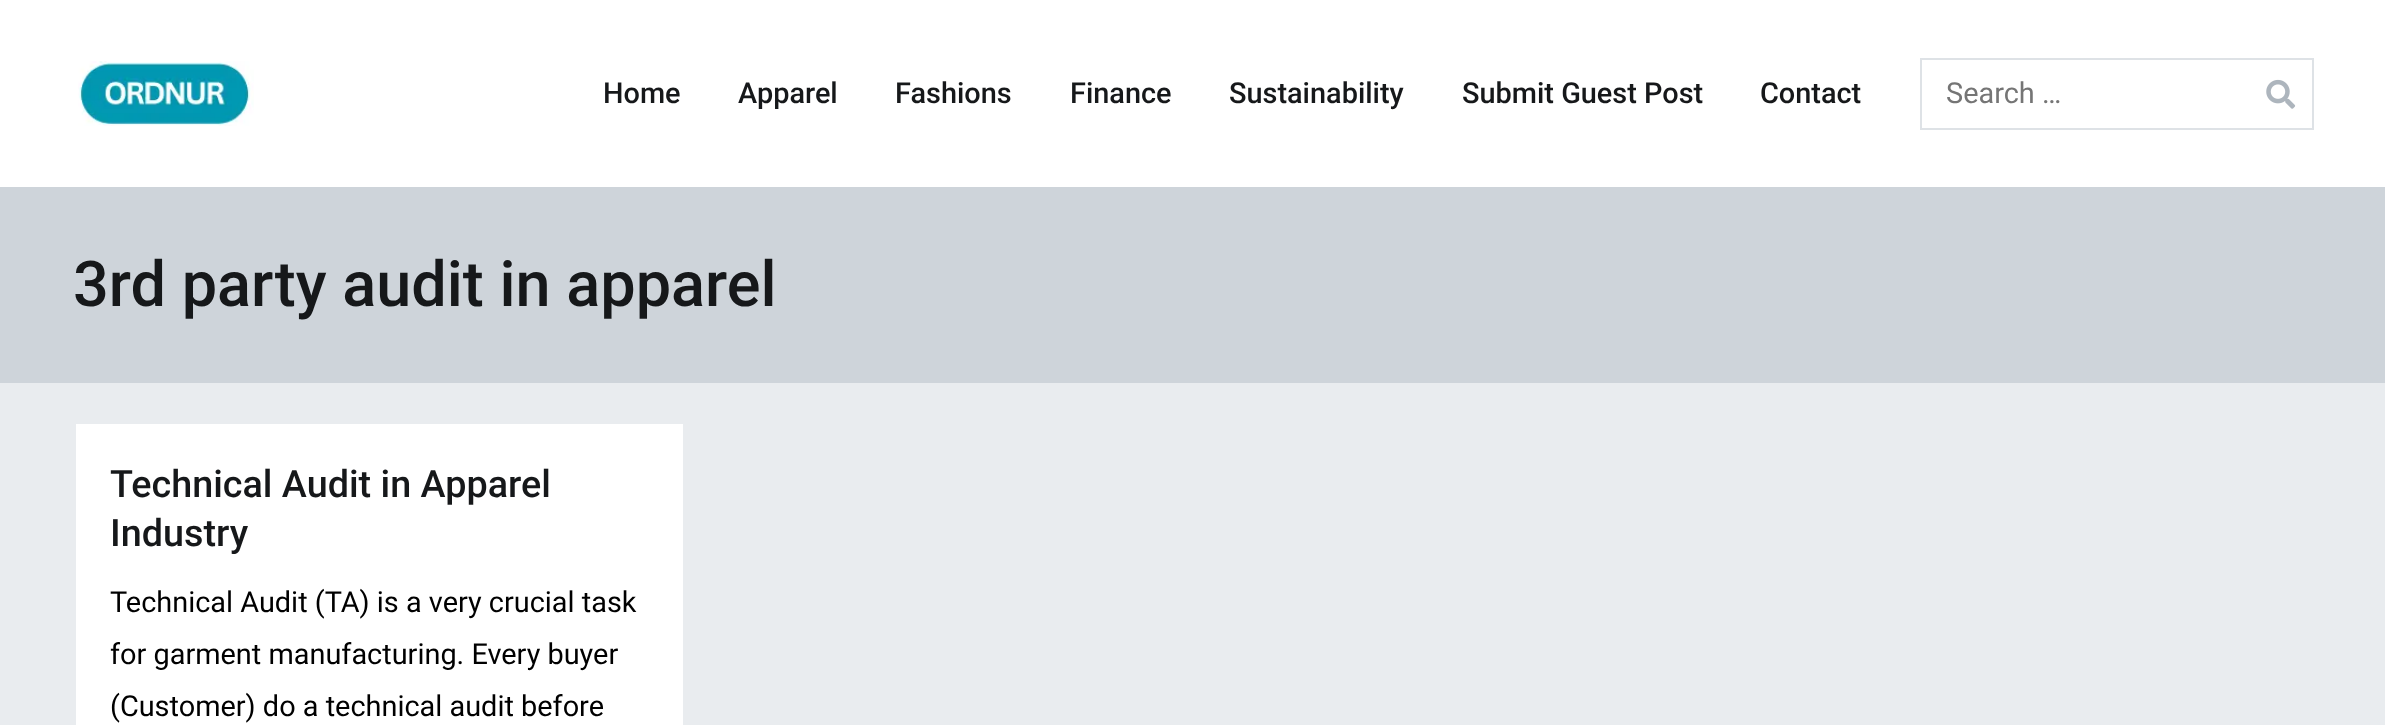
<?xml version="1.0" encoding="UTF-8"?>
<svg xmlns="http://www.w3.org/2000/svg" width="2385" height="725">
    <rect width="100%" height="100%" fill="#E9ECEF"/>
    <rect x="0" y="0" width="2385" height="187" fill="#FFFFFF"/>
    <image x="78" y="61" width="176" height="65" href="img_01.png"/>
    <text x="603" y="103" font-family="Roboto" font-size="28.9" font-weight="500" fill="#16181A">Home</text>
    <text x="738" y="103" font-family="Roboto" font-size="28.9" font-weight="500" fill="#16181A">Apparel</text>
    <text x="895" y="103" font-family="Roboto" font-size="28.9" font-weight="500" fill="#16181A">Fashions</text>
    <text x="1070" y="103" font-family="Roboto" font-size="28.9" font-weight="500" fill="#16181A">Finance</text>
    <text x="1229" y="103" font-family="Roboto" font-size="28.9" font-weight="500" fill="#16181A">Sustainability</text>
    <text x="1462" y="103" font-family="Roboto" font-size="28.9" font-weight="500" fill="#16181A">Submit Guest Post</text>
    <text x="1760" y="103" font-family="Roboto" font-size="28.9" font-weight="500" fill="#16181A">Contact</text>
    <rect x="1921" y="59" width="392" height="70" fill="none" stroke="#DEE2E6" stroke-width="2"/>
    <text x="1946" y="103" font-family="Roboto" font-size="28.9" fill="#757575">Search …</text>
    <image x="2266" y="79" width="30" height="30" href="img_02.png"/>
    <rect x="0" y="187" width="2385" height="196" fill="#CED4DA"/>
    <text x="73" y="306" font-family="Roboto" font-size="63" font-weight="500" fill="#16181A">3rd party audit in apparel</text>
    <rect x="76" y="424" width="607" height="301" fill="#FFFFFF"/>
    <text font-family="Roboto" font-size="37.75" font-weight="500" fill="#16181A">
        <tspan x="110" y="497">Technical Audit in Apparel</tspan>
        <tspan x="110" y="546">Industry</tspan>
    </text>
    <text font-family="Roboto" font-size="28.9" fill="#000000">
        <tspan x="110" y="612">Technical Audit (TA) is a very crucial task</tspan>
        <tspan x="110" y="664">for garment manufacturing. Every buyer</tspan>
        <tspan x="110" y="716">(Customer) do a technical audit before</tspan>
    </text>
</svg>
